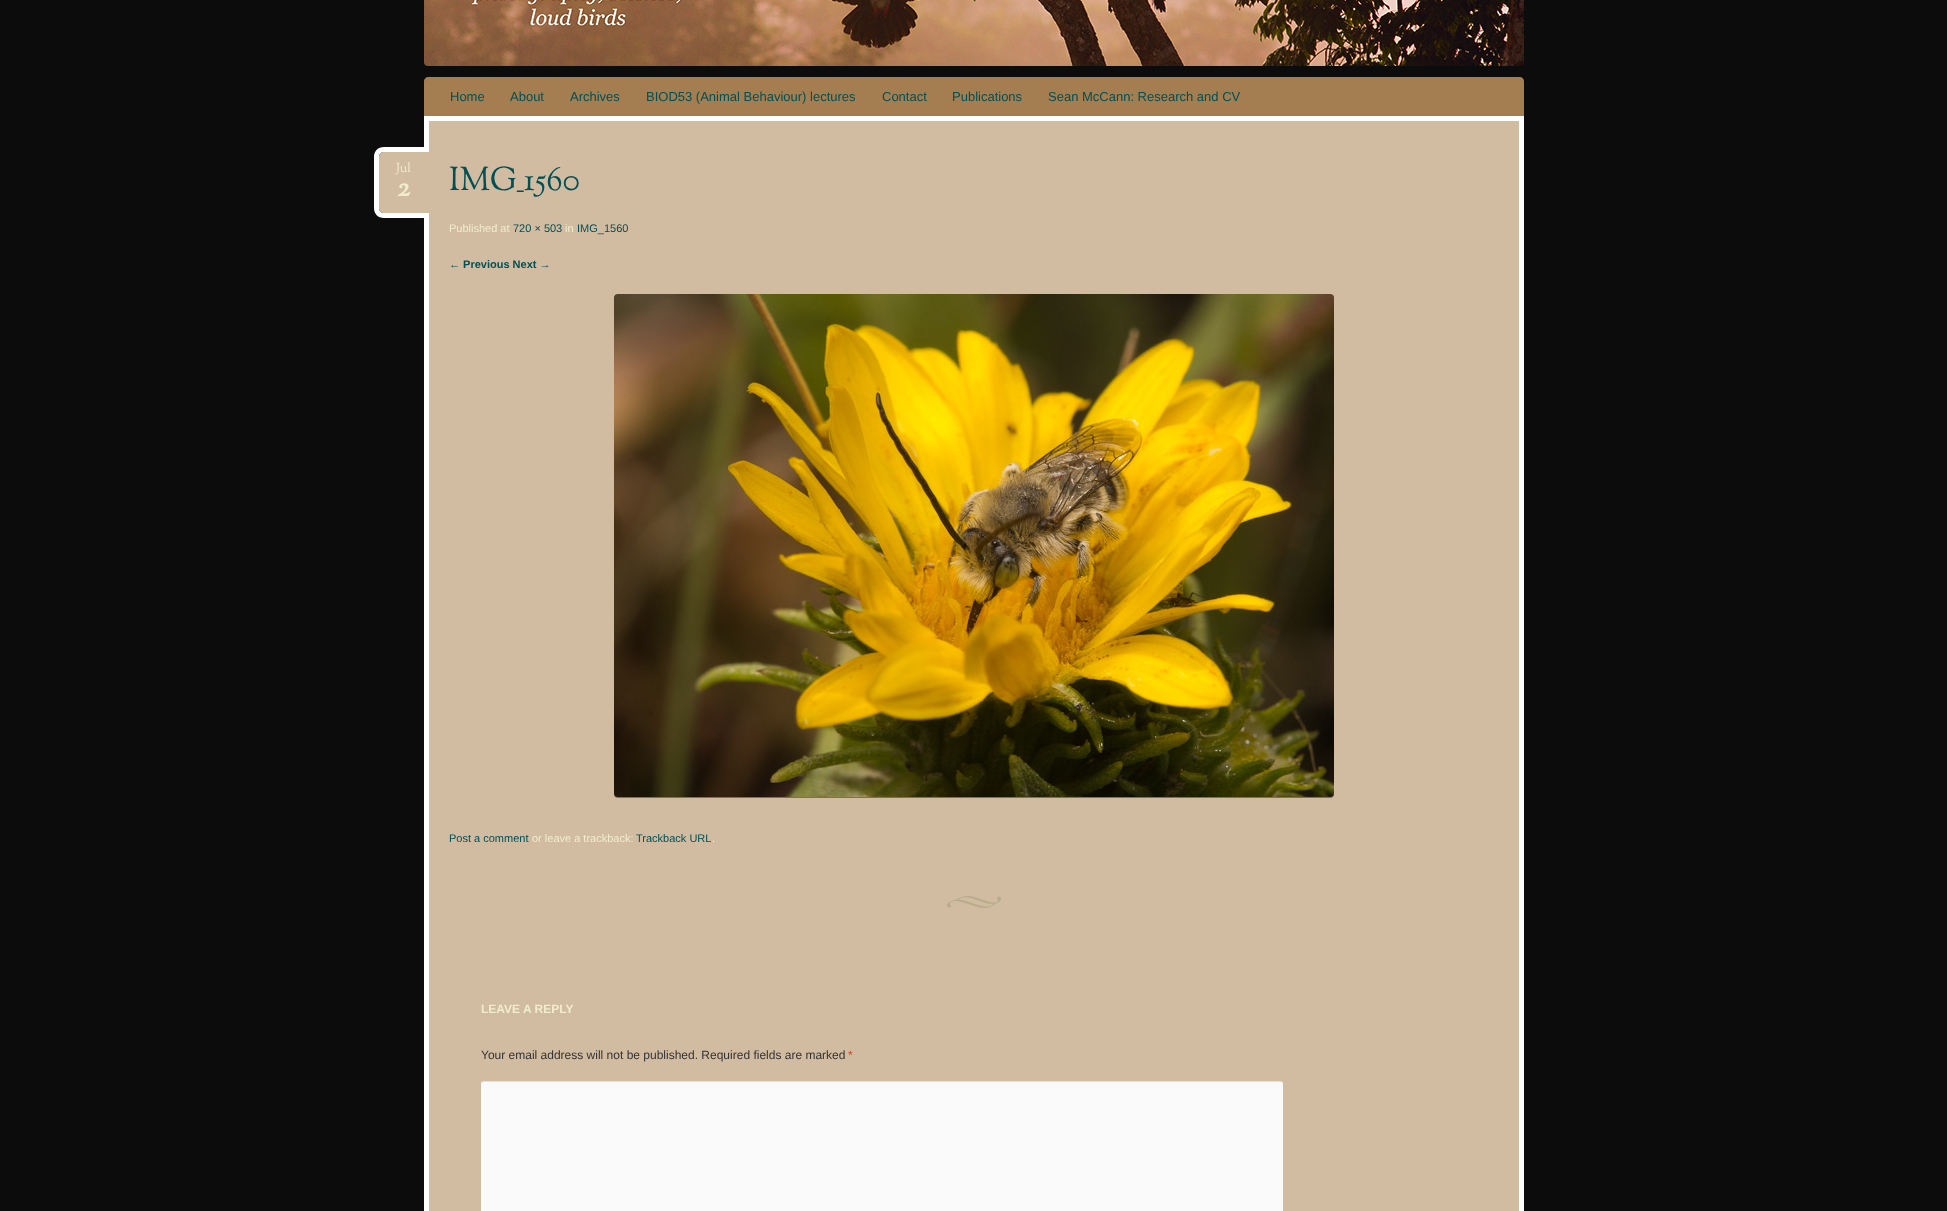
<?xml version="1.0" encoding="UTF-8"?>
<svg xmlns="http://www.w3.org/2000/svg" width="1947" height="1211">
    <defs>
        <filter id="blur1" x="-50%" y="-200%" width="200%" height="500%"><feGaussianBlur stdDeviation="0.5"/></filter>
    </defs>
    <rect width="100%" height="100%" fill="#0D0C0C"/>
    <image x="424" y="0" width="1100" height="66" href="img_01.png"/>
    <path d="M 428 77 H 1520 C 1522 77 1524 79 1524 81 V 116 H 424 V 81 C 424 79 426 77 428 77 Z" fill="#A47E50"/>
    <text x="450" y="101" font-family="Liberation Sans" font-size="13" fill="#005056">Home</text>
    <text x="510" y="101" font-family="Liberation Sans" font-size="13" fill="#005056">About</text>
    <text x="570" y="101" font-family="Liberation Sans" font-size="13" fill="#005056">Archives</text>
    <text x="646" y="101" font-family="Liberation Sans" font-size="13" fill="#005056">BIOD53 (Animal Behaviour) lectures</text>
    <text x="882" y="101" font-family="Liberation Sans" font-size="13" fill="#005056">Contact</text>
    <text x="952" y="101" font-family="Liberation Sans" font-size="13" fill="#005056">Publications</text>
    <text x="1048" y="101" font-family="Liberation Sans" font-size="13" fill="#005056">Sean McCann: Research and CV</text>
    <rect x="426.5" y="118.5" width="1095" height="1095" fill="#D1BBA1" stroke="#FFFFFF" stroke-width="5"/>
    <image x="947" y="896" width="54" height="12" href="img_02.png"/>
    <path d="M 384 152 H 429 V 213 H 384 C 381 213 379 211 379 208 V 157 C 379 154 381 152 384 152 Z" fill="#D1BBA1"/>
    <path d="M 384 147 H 429 V 218 H 384 C 378 218 374 214 374 208 V 157 C 374 151 378 147 384 147 Z M 384 152 H 429 V 213 H 384 C 381 213 379 211 379 208 V 157 C 379 154 381 152 384 152 Z" fill="#FFFFFF" fill-rule="evenodd"/>
    <text x="396" y="172" font-family="Sorts Mill Goudy" font-size="13" fill="#EFEECC">Jul</text>
    <text x="397" y="196" font-family="Sorts Mill Goudy" font-size="28" font-weight="700" fill="#EFEECC">2</text>
    <text x="449" y="190" font-family="Sorts Mill Goudy" font-size="33" fill="#005056">IMG_1560</text>
    <text x="449" y="232" font-family="Liberation Sans" font-size="11" fill="#EFEECC">Published at</text>
    <text x="513" y="232" font-family="Liberation Sans" font-size="11" fill="#005056">720 × 503</text>
    <text x="565" y="232" font-family="Liberation Sans" font-size="11" fill="#EFEECC">in</text>
    <text x="577" y="232" font-family="Liberation Sans" font-size="11" fill="#005056">IMG_1560</text>
    <text x="449" y="268" font-family="Liberation Sans" font-size="11" font-weight="700" fill="#005056">← Previous Next →</text>
    <rect x="614" y="295" width="720" height="503" rx="4" fill="#000000" fill-opacity="0.4" filter="url(#blur1)"/>
    <image x="614" y="294" width="720" height="503" href="img_03.png"/>
    <text x="449" y="842" font-family="Liberation Sans" font-size="11" fill="#005056">Post a comment</text>
    <text x="532" y="842" font-family="Liberation Sans" font-size="11" fill="#EFEECC">or leave a trackback:</text>
    <text x="636" y="842" font-family="Liberation Sans" font-size="11" fill="#005056">Trackback URL</text>
    <text x="712" y="842" font-family="Liberation Sans" font-size="11" fill="#EFEECC">.</text>
    <text x="481" y="1013" font-family="Liberation Sans" font-size="12" font-weight="700" fill="#EFEECC">LEAVE A REPLY</text>
    <text x="481" y="1059" font-family="Liberation Sans" font-size="12" fill="#333333">Your email address will not be published. Required fields are marked</text>
    <text x="848" y="1059" font-family="Liberation Sans" font-size="12" fill="#CC4D22">*</text>
    <rect x="481" y="1081" width="802" height="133" rx="3" fill="#FAFAFA"/>
    <path d="M 484 1082 H 1280 C 1282 1082 1283 1083 1283 1085 C 1283 1083 1282 1081 1280 1081 H 484 C 482 1081 481 1083 481 1085 C 481 1083 482 1082 484 1082 Z" fill="#000000" fill-opacity="0.1"/>
</svg>
